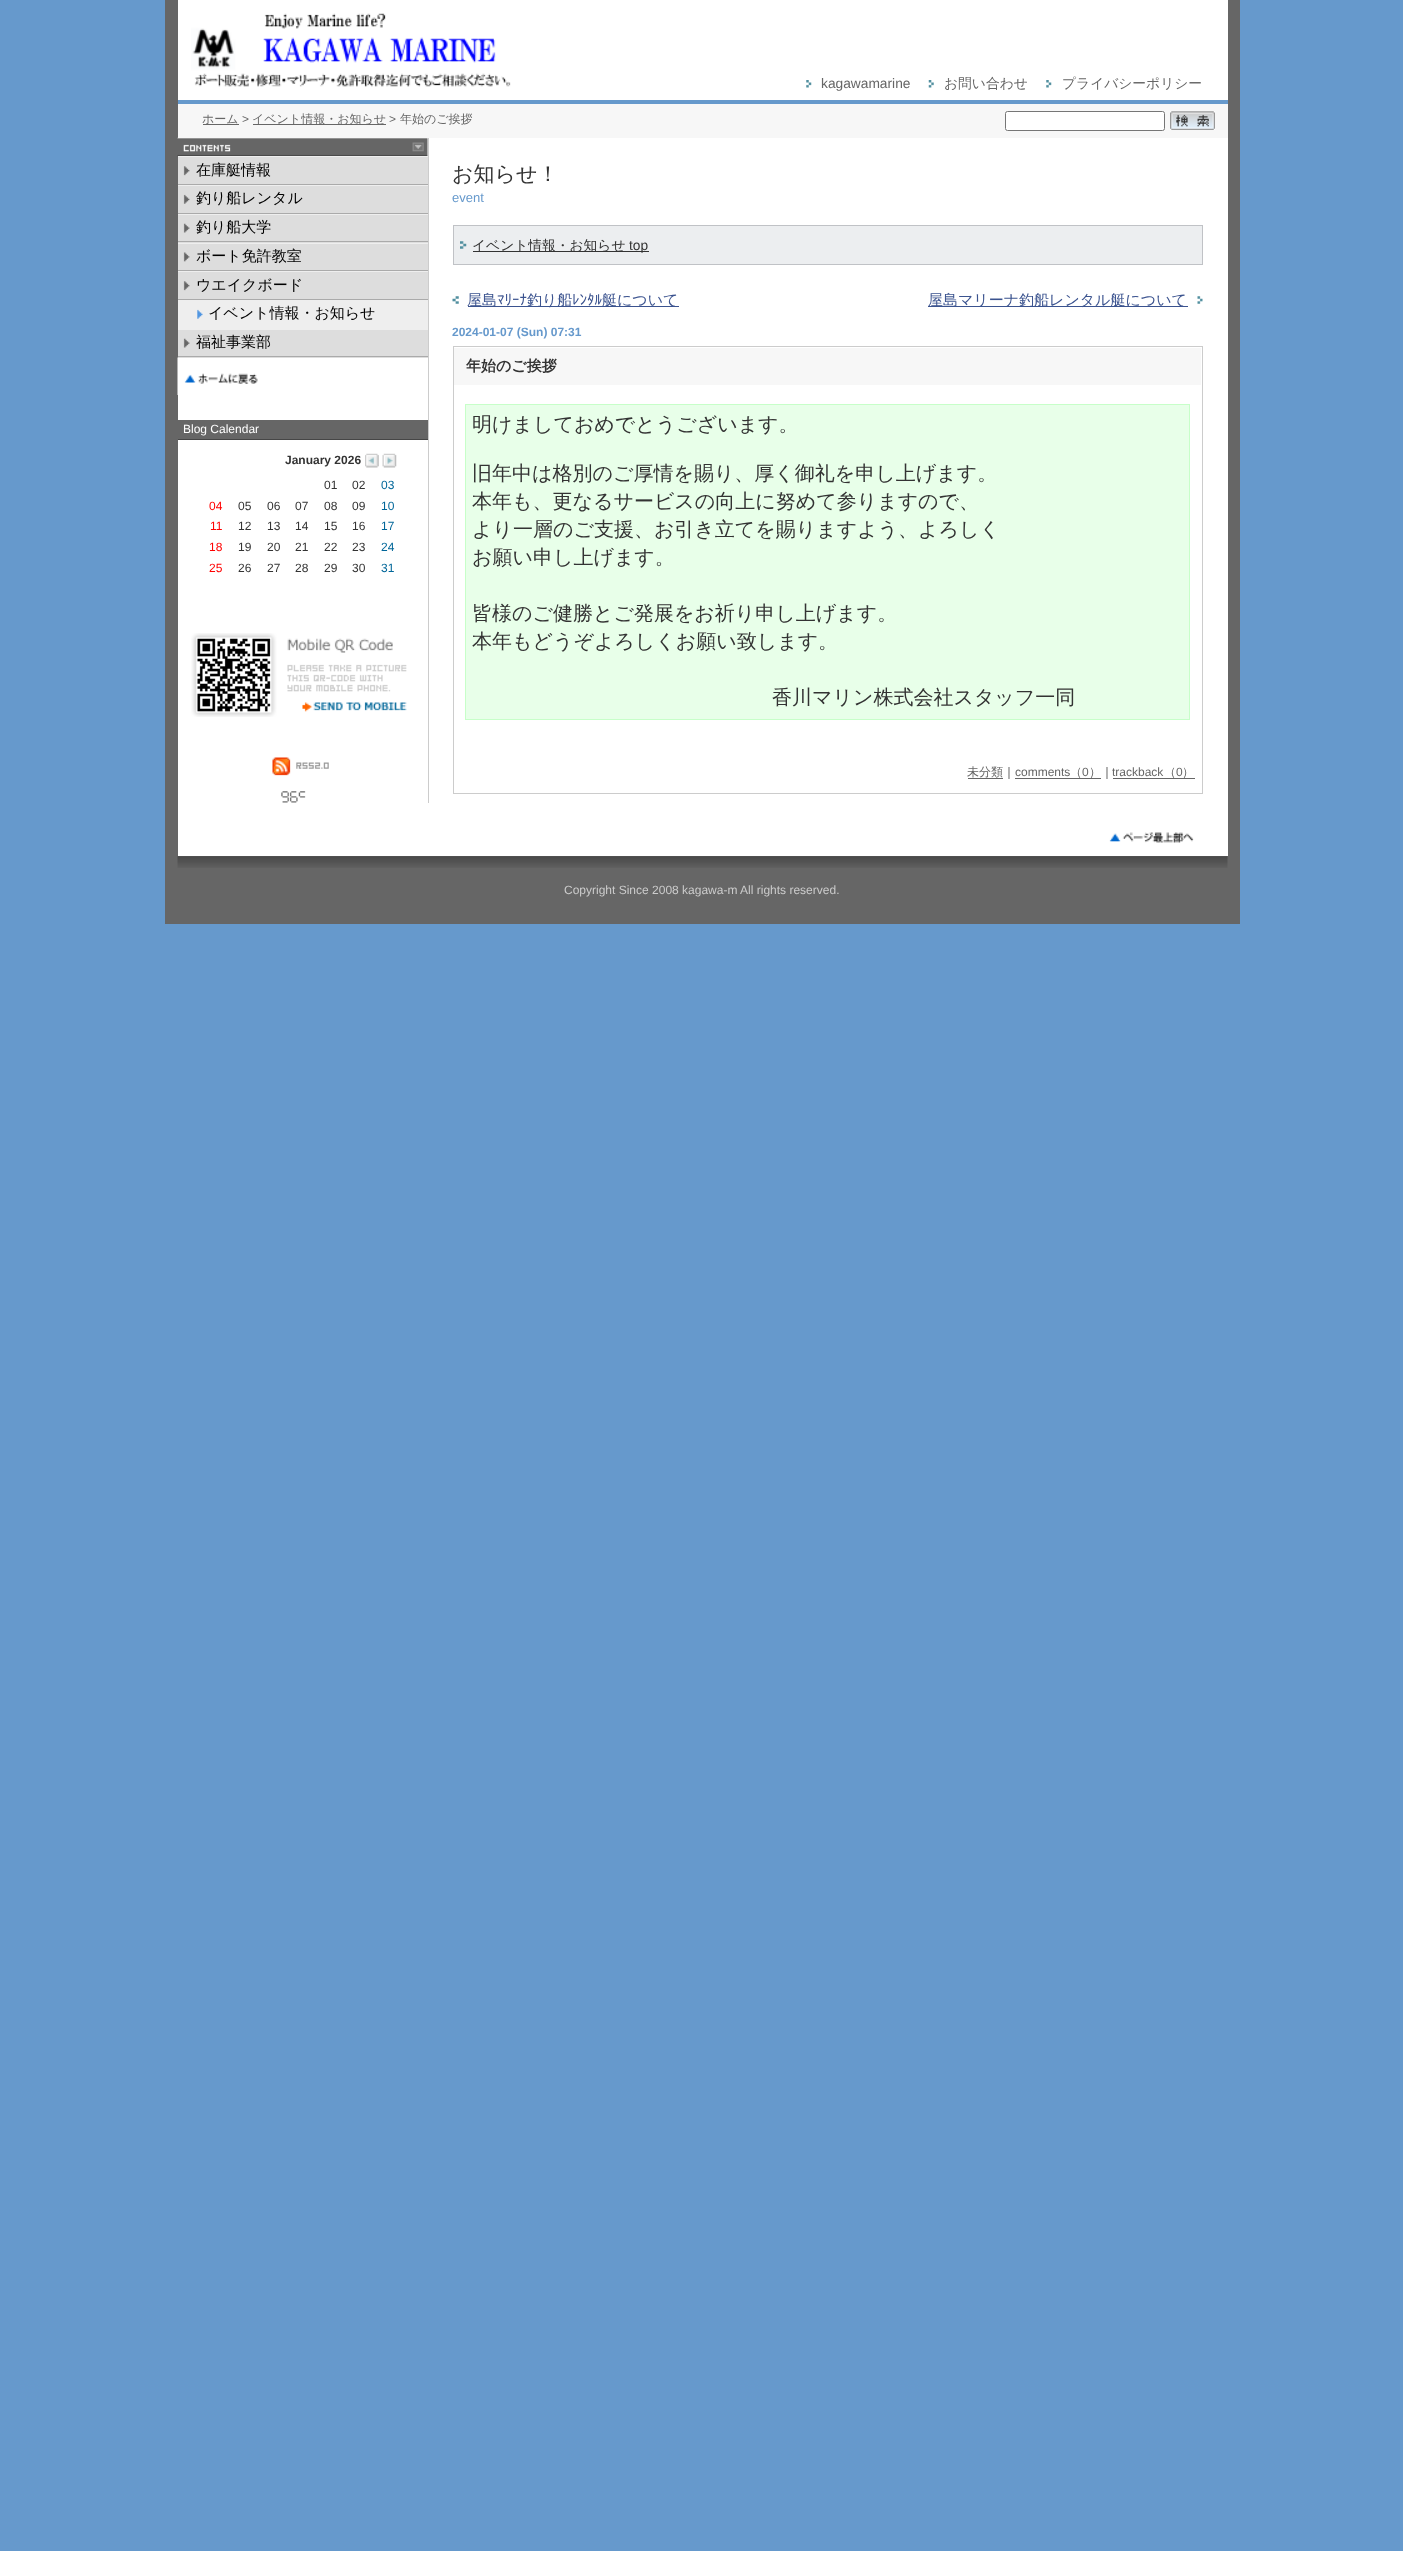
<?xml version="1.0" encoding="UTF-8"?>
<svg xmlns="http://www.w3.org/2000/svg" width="1403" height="2551">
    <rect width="100%" height="100%" fill="#6699CC"/>
    <rect x="178" y="0" width="1050" height="856" fill="#FFFFFF"/>
    <rect x="1228" y="0" width="12" height="924" fill="#666666"/>
    <rect x="165" y="0" width="13" height="924" fill="#666666"/>
    <image x="191" y="13" width="320" height="74" href="img_01.png"/>
    <image x="806" y="80" width="6" height="8" href="img_02.png"/>
    <text x="821" y="88" font-family="Liberation Sans" font-size="13.75" fill="#666666">kagawamarine</text>
    <image x="928" y="80" width="6" height="8" href="img_03.png"/>
    <text x="944" y="88" font-family="WenQuanYi Zen Hei" font-size="13.75" font-weight="500" fill="#666666">お問い合わせ</text>
    <image x="1046" y="80" width="6" height="8" href="img_02.png"/>
    <text x="1062" y="88" font-family="WenQuanYi Zen Hei" font-size="13.75" font-weight="500" fill="#666666">プライバシーポリシー</text>
    <image x="177" y="137" width="251" height="20" href="img_05.png"/>
    <rect x="178" y="104" width="1050" height="34" fill="#F7F7F7"/>
    <rect x="178" y="100" width="1050" height="4" fill="#6699CC"/>
    <rect x="203" y="124" width="36" height="1" fill="#666666"/>
    <text x="202" y="123" font-family="WenQuanYi Zen Hei" font-size="12" font-weight="500" fill="#666666">ホーム</text>
    <text x="242" y="123" font-family="Liberation Sans" font-size="12" fill="#666666">&gt;</text>
    <rect x="253" y="124" width="133" height="1" fill="#666666"/>
    <text x="252" y="123" font-family="WenQuanYi Zen Hei" font-size="12" font-weight="500" fill="#666666">イベント情報・お知らせ</text>
    <text x="389" y="123" font-family="Liberation Sans" font-size="12" fill="#666666">&gt;</text>
    <text x="400" y="123" font-family="WenQuanYi Zen Hei" font-size="12" font-weight="500" fill="#666666">年始のご挨拶</text>
    <rect x="1005.5" y="111.5" width="159" height="19" rx="2" fill="#FFFFFF" stroke="#767676"/>
    <image x="1170" y="111" width="45" height="19" href="img_04.png"/>
    <rect x="428" y="138" width="1" height="665" fill="#CCCCCC"/>
    <rect x="178" y="157" width="250" height="27" fill="#DDDDDD"/>
    <image x="183" y="166" width="7" height="10" href="img_06.png"/>
    <rect x="178" y="156" width="250" height="1" fill="#EEEEEE"/>
    <rect x="178" y="184" width="250" height="1" fill="#AAAAAA"/>
    <text x="196" y="175" font-family="WenQuanYi Zen Hei" font-size="15" font-weight="500" fill="#000000">在庫艇情報</text>
    <rect x="178" y="186" width="250" height="27" fill="#DDDDDD"/>
    <image x="183" y="194" width="7" height="10" href="img_07.png"/>
    <rect x="178" y="185" width="250" height="1" fill="#EEEEEE"/>
    <rect x="178" y="213" width="250" height="1" fill="#AAAAAA"/>
    <text x="196" y="203" font-family="WenQuanYi Zen Hei" font-size="15" font-weight="500" fill="#000000">釣り船レンタル</text>
    <rect x="178" y="215" width="250" height="28" fill="#DDDDDD"/>
    <image x="183" y="223" width="7" height="10" href="img_08.png"/>
    <rect x="178" y="214" width="250" height="1" fill="#EEEEEE"/>
    <rect x="178" y="241" width="250" height="1" fill="#AAAAAA"/>
    <text x="196" y="232" font-family="WenQuanYi Zen Hei" font-size="15" font-weight="500" fill="#000000">釣り船大学</text>
    <rect x="178" y="244" width="250" height="26" fill="#DDDDDD"/>
    <image x="183" y="252" width="7" height="10" href="img_09.png"/>
    <rect x="178" y="243" width="250" height="1" fill="#EEEEEE"/>
    <rect x="178" y="270" width="250" height="1" fill="#AAAAAA"/>
    <text x="196" y="261" font-family="WenQuanYi Zen Hei" font-size="15" font-weight="500" fill="#000000">ボート免許教室</text>
    <rect x="178" y="272" width="250" height="27" fill="#DDDDDD"/>
    <image x="183" y="281" width="7" height="10" href="img_06.png"/>
    <rect x="178" y="271" width="250" height="1" fill="#EEEEEE"/>
    <rect x="178" y="299" width="250" height="1" fill="#AAAAAA"/>
    <text x="196" y="290" font-family="WenQuanYi Zen Hei" font-size="15" font-weight="500" fill="#000000">ウエイクボード</text>
    <rect x="178" y="300" width="250" height="30" fill="#EEEEEE"/>
    <image x="197" y="309" width="6" height="10" href="img_10.png"/>
    <text x="208" y="318" font-family="WenQuanYi Zen Hei" font-size="15" font-weight="500" fill="#000000">イベント情報・お知らせ</text>
    <image x="177" y="357" width="81" height="38" href="img_11.png"/>
    <rect x="178" y="330" width="250" height="28" fill="#DDDDDD"/>
    <image x="183" y="338" width="7" height="10" href="img_08.png"/>
    <rect x="178" y="356" width="250" height="1" fill="#AAAAAA"/>
    <text x="196" y="347" font-family="WenQuanYi Zen Hei" font-size="15" font-weight="500" fill="#000000">福祉事業部</text>
    <rect x="178" y="420" width="250" height="19" fill="#666666"/>
    <rect x="178" y="439" width="250" height="1" fill="#464646"/>
    <text x="183" y="433" font-family="Liberation Sans" font-size="12" fill="#FFFFFF">Blog Calendar</text>
    <text x="285" y="464" font-family="Liberation Sans" font-size="12" font-weight="700" fill="#333333">January 2026</text>
    <image x="365" y="453" width="14" height="15" href="img_12.png"/>
    <image x="382" y="453" width="15" height="15" href="img_13.png"/>
    <text x="324" y="489" font-family="Liberation Sans" font-size="12" fill="#333333">01</text>
    <text x="352" y="489" font-family="Liberation Sans" font-size="12" fill="#333333">02</text>
    <text x="381" y="489" font-family="Liberation Sans" font-size="12" fill="#006699">03</text>
    <text x="209" y="510" font-family="Liberation Sans" font-size="12" fill="#FF0000">04</text>
    <text x="238" y="510" font-family="Liberation Sans" font-size="12" fill="#333333">05</text>
    <text x="267" y="510" font-family="Liberation Sans" font-size="12" fill="#333333">06</text>
    <text x="295" y="510" font-family="Liberation Sans" font-size="12" fill="#333333">07</text>
    <text x="324" y="510" font-family="Liberation Sans" font-size="12" fill="#333333">08</text>
    <text x="352" y="510" font-family="Liberation Sans" font-size="12" fill="#333333">09</text>
    <text x="381" y="510" font-family="Liberation Sans" font-size="12" fill="#006699">10</text>
    <text x="210" y="530" font-family="Liberation Sans" font-size="12" fill="#FF0000">11</text>
    <text x="238" y="530" font-family="Liberation Sans" font-size="12" fill="#333333">12</text>
    <text x="267" y="530" font-family="Liberation Sans" font-size="12" fill="#333333">13</text>
    <text x="295" y="530" font-family="Liberation Sans" font-size="12" fill="#333333">14</text>
    <text x="324" y="530" font-family="Liberation Sans" font-size="12" fill="#333333">15</text>
    <text x="352" y="530" font-family="Liberation Sans" font-size="12" fill="#333333">16</text>
    <text x="381" y="530" font-family="Liberation Sans" font-size="12" fill="#006699">17</text>
    <text x="209" y="551" font-family="Liberation Sans" font-size="12" fill="#FF0000">18</text>
    <text x="238" y="551" font-family="Liberation Sans" font-size="12" fill="#333333">19</text>
    <text x="267" y="551" font-family="Liberation Sans" font-size="12" fill="#333333">20</text>
    <text x="295" y="551" font-family="Liberation Sans" font-size="12" fill="#333333">21</text>
    <text x="324" y="551" font-family="Liberation Sans" font-size="12" fill="#333333">22</text>
    <text x="352" y="551" font-family="Liberation Sans" font-size="12" fill="#333333">23</text>
    <text x="381" y="551" font-family="Liberation Sans" font-size="12" fill="#006699">24</text>
    <text x="209" y="572" font-family="Liberation Sans" font-size="12" fill="#FF0000">25</text>
    <text x="238" y="572" font-family="Liberation Sans" font-size="12" fill="#333333">26</text>
    <text x="267" y="572" font-family="Liberation Sans" font-size="12" fill="#333333">27</text>
    <text x="295" y="572" font-family="Liberation Sans" font-size="12" fill="#333333">28</text>
    <text x="324" y="572" font-family="Liberation Sans" font-size="12" fill="#333333">29</text>
    <text x="352" y="572" font-family="Liberation Sans" font-size="12" fill="#333333">30</text>
    <text x="381" y="572" font-family="Liberation Sans" font-size="12" fill="#006699">31</text>
    <image x="191" y="633" width="216" height="84" href="img_14.png"/>
    <image x="272" y="757" width="57" height="19" href="img_15.png"/>
    <image x="281" y="791" width="25" height="12" href="img_16.png"/>
    <text x="452" y="181" font-family="WenQuanYi Zen Hei" font-size="21" font-weight="500" fill="#333333">お知らせ！</text>
    <text x="452" y="202" font-family="Liberation Sans" font-size="13" fill="#6699CC">event</text>
    <rect x="453.5" y="225.5" width="749" height="39" fill="#ECEEF0" stroke="#C0C2C6"/>
    <image x="460" y="241" width="7" height="8" href="img_17.png"/>
    <rect x="473" y="251" width="176" height="1" fill="#333333"/>
    <text x="472" y="250" font-family="WenQuanYi Zen Hei" font-size="13.75" font-weight="500" fill="#333333">イベント情報・お知らせ</text>
    <text x="629" y="250" font-family="Liberation Sans" font-size="13.75" fill="#333333">top</text>
    <image x="452" y="296" width="7" height="8" href="img_18.png"/>
    <rect x="468" y="306" width="211" height="1" fill="#3B538F"/>
    <text x="467" y="305" font-family="WenQuanYi Zen Hei" font-size="15" font-weight="500" fill="#3B538F">屋島</text>
    <text x="497" y="305" font-family="IPAGothic" font-size="15" fill="#3B538F">ﾏﾘｰﾅ</text>
    <text x="527" y="305" font-family="WenQuanYi Zen Hei" font-size="15" font-weight="500" fill="#3B538F">釣り船</text>
    <text x="572" y="305" font-family="IPAGothic" font-size="15" fill="#3B538F">ﾚﾝﾀﾙ</text>
    <text x="602" y="305" font-family="WenQuanYi Zen Hei" font-size="15" font-weight="500" fill="#3B538F">艇について</text>
    <image x="1197" y="296" width="6" height="8" href="img_19.png"/>
    <rect x="928" y="306" width="260" height="1" fill="#3B538F"/>
    <text x="928" y="305" font-family="WenQuanYi Zen Hei" font-size="15" font-weight="500" fill="#3B538F">屋島マリーナ釣船レンタル艇について</text>
    <text x="452" y="336" font-family="Liberation Sans" font-size="12" font-weight="700" fill="#6699CC">2024-01-07 (Sun) 07:31</text>
    <rect x="453.5" y="346.5" width="749" height="447" fill="none" stroke="#CCCCCC"/>
    <rect x="454" y="348" width="747" height="37" fill="#F7F7F7"/>
    <text x="466" y="371" font-family="WenQuanYi Zen Hei" font-size="15" font-weight="700" fill="#333333">年始のご挨拶</text>
    <rect x="465.5" y="404.5" width="724" height="315" fill="#E8FFE9" stroke="#C7FFC9"/>
    <text x="472" y="431" font-family="WenQuanYi Zen Hei" font-size="20" font-weight="500" fill="#333333">明けましておめでとうございます。</text>
    <text font-family="WenQuanYi Zen Hei" font-size="20" font-weight="500" fill="#333333">
        <tspan x="472" y="480">旧年中は格別のご厚情を賜り、厚く御礼を申し上げます。</tspan>
        <tspan x="472" y="508">本年も、更なるサービスの向上に努めて参りますので、</tspan>
        <tspan x="472" y="536">より一層のご支援、お引き立てを賜りますよう、よろしく</tspan>
        <tspan x="472" y="564">お願い申し上げます。</tspan>
    </text>
    <text font-family="WenQuanYi Zen Hei" font-size="20" font-weight="500" fill="#333333">
        <tspan x="472" y="620">皆様のご健勝とご発展をお祈り申し上げます。</tspan>
        <tspan x="472" y="648">本年もどうぞよろしくお願い致します。</tspan>
    </text>
    <text x="772" y="704" font-family="WenQuanYi Zen Hei" font-size="20" font-weight="500" fill="#333333">香川マリン株式会社スタッフ一同</text>
    <text x="967" y="776" font-family="WenQuanYi Zen Hei" font-size="12" font-weight="500" fill="#666666">未分類</text>
    <rect x="968" y="778" width="35" height="1" fill="#666666"/>
    <text x="1003" y="776" font-family="WenQuanYi Zen Hei" font-size="12" font-weight="500" fill="#333333">｜</text>
    <text x="1015" y="776" font-family="Liberation Sans" font-size="12" fill="#666666">comments</text>
    <rect x="1015" y="778" width="86" height="1" fill="#666666"/>
    <text x="1070" y="776" font-family="WenQuanYi Zen Hei" font-size="12" font-weight="500" fill="#666666">（</text>
    <text x="1082" y="776" font-family="Liberation Sans" font-size="12" fill="#666666">0</text>
    <text x="1089" y="776" font-family="WenQuanYi Zen Hei" font-size="12" font-weight="500" fill="#666666">）</text>
    <text x="1101" y="776" font-family="WenQuanYi Zen Hei" font-size="12" font-weight="500" fill="#333333">｜</text>
    <text x="1112" y="776" font-family="Liberation Sans" font-size="12" fill="#666666">trackback</text>
    <rect x="1113" y="778" width="82" height="1" fill="#666666"/>
    <text x="1164" y="776" font-family="WenQuanYi Zen Hei" font-size="12" font-weight="500" fill="#666666">（</text>
    <text x="1176" y="776" font-family="Liberation Sans" font-size="12" fill="#666666">0</text>
    <text x="1182" y="776" font-family="WenQuanYi Zen Hei" font-size="12" font-weight="500" fill="#666666">）</text>
    <image x="1109" y="832" width="85" height="11" href="img_20.png"/>
    <rect x="178" y="856" width="1050" height="68" fill="#666666"/>
    <image x="177" y="856" width="1051" height="12" href="img_21.png"/>
    <text x="564" y="894" font-family="Liberation Sans" font-size="12" fill="#CCCCCC">Copyright Since 2008 kagawa-m All rights reserved.</text>
</svg>
